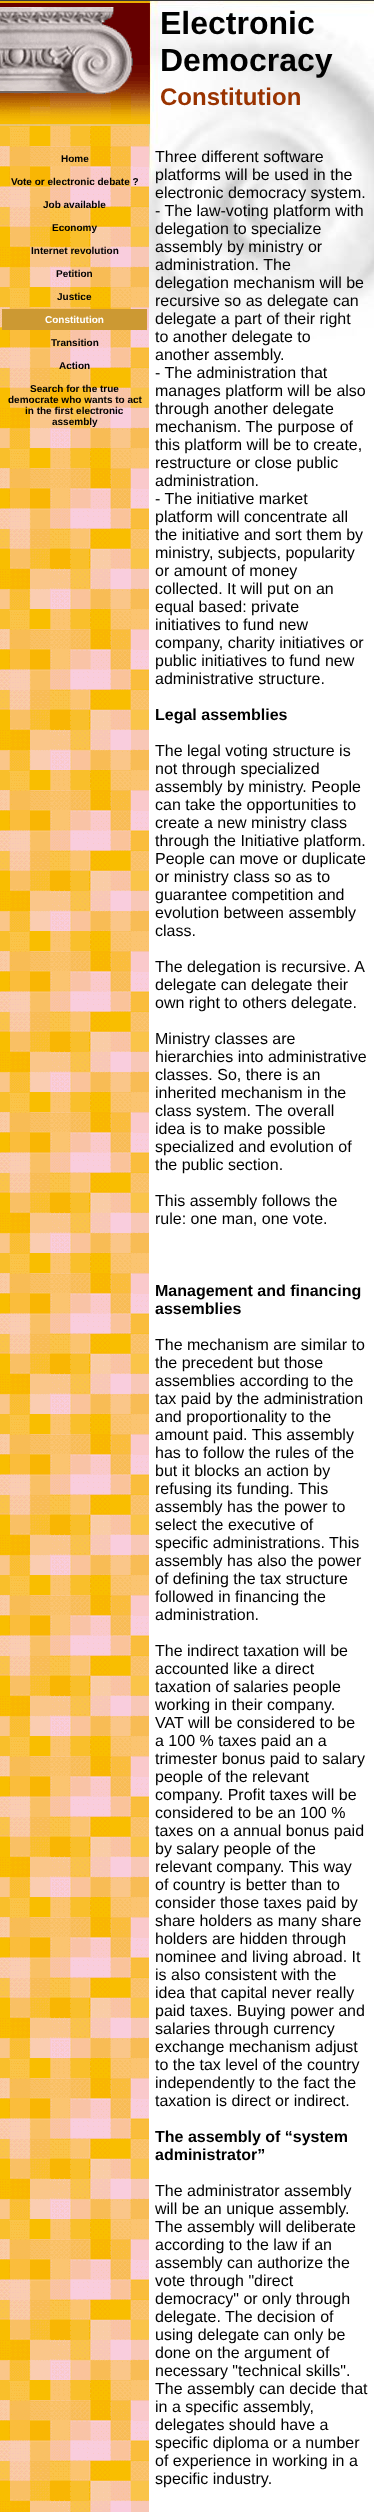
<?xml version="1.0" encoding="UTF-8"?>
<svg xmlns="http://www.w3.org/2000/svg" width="374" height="2512">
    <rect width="100%" height="100%" fill="#FFFFFF"/>
    <image x="0" y="1" width="374" height="338" href="img_01.png"/>
    <rect x="0" y="0" width="374" height="1" fill="#393939"/>
    <image x="0" y="3" width="150" height="121" href="img_02.png"/>
    <text font-family="Liberation Sans" font-size="32" font-weight="700" fill="#000000">
        <tspan x="160" y="34">Electronic</tspan>
        <tspan x="160" y="71">Democracy</tspan>
    </text>
    <text x="160" y="105" font-family="Liberation Sans" font-size="24" font-weight="700" fill="#993300">Constitution</text>
    <image x="0" y="126" width="149" height="2386" href="img_03.png"/>
    <text x="61" y="162" font-family="Liberation Sans" font-size="10" font-weight="700" fill="#000000">Home</text>
    <text x="11" y="185" font-family="Liberation Sans" font-size="10" font-weight="700" fill="#000000">Vote or electronic debate ?</text>
    <text x="43" y="208" font-family="Liberation Sans" font-size="10" font-weight="700" fill="#000000">Job available</text>
    <text x="52" y="231" font-family="Liberation Sans" font-size="10" font-weight="700" fill="#000000">Economy</text>
    <text x="31" y="254" font-family="Liberation Sans" font-size="10" font-weight="700" fill="#000000">Internet revolution</text>
    <text x="56" y="277" font-family="Liberation Sans" font-size="10" font-weight="700" fill="#000000">Petition</text>
    <text x="57" y="300" font-family="Liberation Sans" font-size="10" font-weight="700" fill="#000000">Justice</text>
    <rect x="2" y="309" width="145" height="21" fill="#CC9933"/>
    <text x="45" y="323" font-family="Liberation Sans" font-size="10" font-weight="700" fill="#FFFFFF">Constitution</text>
    <text x="51" y="346" font-family="Liberation Sans" font-size="10" font-weight="700" fill="#000000">Transition</text>
    <text x="59" y="369" font-family="Liberation Sans" font-size="10" font-weight="700" fill="#000000">Action</text>
    <text x="30" y="392" font-family="Liberation Sans" font-size="10" font-weight="700" fill="#000000">Search for the true</text>
    <text x="8" y="403" font-family="Liberation Sans" font-size="10" font-weight="700" fill="#000000">democrate who wants to act</text>
    <text x="25" y="414" font-family="Liberation Sans" font-size="10" font-weight="700" fill="#000000">in the first electronic</text>
    <text x="52" y="425" font-family="Liberation Sans" font-size="10" font-weight="700" fill="#000000">assembly</text>
    <text font-family="Liberation Sans" font-size="16" fill="#000000">
        <tspan x="155" y="162">Three different software</tspan>
        <tspan x="155" y="180">platforms will be used in the</tspan>
        <tspan x="155" y="198">electronic democracy system.</tspan>
        <tspan x="155" y="216">- The law-voting platform with</tspan>
        <tspan x="155" y="234">delegation to specialize</tspan>
        <tspan x="155" y="252">assembly by ministry or</tspan>
        <tspan x="155" y="270">administration. The</tspan>
        <tspan x="155" y="288">delegation mechanism will be</tspan>
        <tspan x="155" y="306">recursive so as delegate can</tspan>
        <tspan x="155" y="324">delegate a part of their right</tspan>
        <tspan x="155" y="342">to another delegate to</tspan>
        <tspan x="155" y="360">another assembly.</tspan>
        <tspan x="155" y="378">- The administration that</tspan>
        <tspan x="155" y="396">manages platform will be also</tspan>
        <tspan x="155" y="414">through another delegate</tspan>
        <tspan x="155" y="432">mechanism. The purpose of</tspan>
        <tspan x="155" y="450">this platform will be to create,</tspan>
        <tspan x="155" y="468">restructure or close public</tspan>
        <tspan x="155" y="486">administration.</tspan>
        <tspan x="155" y="504">- The initiative market</tspan>
        <tspan x="155" y="522">platform will concentrate all</tspan>
        <tspan x="155" y="540">the initiative and sort them by</tspan>
        <tspan x="155" y="558">ministry, subjects, popularity</tspan>
        <tspan x="155" y="576">or amount of money</tspan>
        <tspan x="155" y="594">collected. It will put on an</tspan>
        <tspan x="155" y="612">equal based: private</tspan>
        <tspan x="155" y="630">initiatives to fund new</tspan>
        <tspan x="155" y="648">company, charity initiatives or</tspan>
        <tspan x="155" y="666">public initiatives to fund new</tspan>
        <tspan x="155" y="684">administrative structure.</tspan>
    </text>
    <text x="155" y="720" font-family="Liberation Sans" font-size="16" font-weight="700" fill="#000000">Legal assemblies</text>
    <text font-family="Liberation Sans" font-size="16" fill="#000000">
        <tspan x="155" y="756">The legal voting structure is</tspan>
        <tspan x="155" y="774">not through specialized</tspan>
        <tspan x="155" y="792">assembly by ministry. People</tspan>
        <tspan x="155" y="810">can take the opportunities to</tspan>
        <tspan x="155" y="828">create a new ministry class</tspan>
        <tspan x="155" y="846">through the Initiative platform.</tspan>
        <tspan x="155" y="864">People can move or duplicate</tspan>
        <tspan x="155" y="882">or ministry class so as to</tspan>
        <tspan x="155" y="900">guarantee competition and</tspan>
        <tspan x="155" y="918">evolution between assembly</tspan>
        <tspan x="155" y="936">class.</tspan>
    </text>
    <text font-family="Liberation Sans" font-size="16" fill="#000000">
        <tspan x="155" y="972">The delegation is recursive. A</tspan>
        <tspan x="155" y="990">delegate can delegate their</tspan>
        <tspan x="155" y="1008">own right to others delegate.</tspan>
    </text>
    <text font-family="Liberation Sans" font-size="16" fill="#000000">
        <tspan x="155" y="1044">Ministry classes are</tspan>
        <tspan x="155" y="1062">hierarchies into administrative</tspan>
        <tspan x="155" y="1080">classes. So, there is an</tspan>
        <tspan x="155" y="1098">inherited mechanism in the</tspan>
        <tspan x="155" y="1116">class system. The overall</tspan>
        <tspan x="155" y="1134">idea is to make possible</tspan>
        <tspan x="155" y="1152">specialized and evolution of</tspan>
        <tspan x="155" y="1170">the public section.</tspan>
    </text>
    <text font-family="Liberation Sans" font-size="16" fill="#000000">
        <tspan x="155" y="1206">This assembly follows the</tspan>
        <tspan x="155" y="1224">rule: one man, one vote.</tspan>
    </text>
    <text font-family="Liberation Sans" font-size="16" font-weight="700" fill="#000000">
        <tspan x="155" y="1296">Management and financing</tspan>
        <tspan x="155" y="1314">assemblies</tspan>
    </text>
    <text font-family="Liberation Sans" font-size="16" fill="#000000">
        <tspan x="155" y="1350">The mechanism are similar to</tspan>
        <tspan x="155" y="1368">the precedent but those</tspan>
        <tspan x="155" y="1386">assemblies according to the</tspan>
        <tspan x="155" y="1404">tax paid by the administration</tspan>
        <tspan x="155" y="1422">and proportionality to the</tspan>
        <tspan x="155" y="1440">amount paid. This assembly</tspan>
        <tspan x="155" y="1458">has to follow the rules of the</tspan>
        <tspan x="155" y="1476">but it blocks an action by</tspan>
        <tspan x="155" y="1494">refusing its funding. This</tspan>
        <tspan x="155" y="1512">assembly has the power to</tspan>
        <tspan x="155" y="1530">select the executive of</tspan>
        <tspan x="155" y="1548">specific administrations. This</tspan>
        <tspan x="155" y="1566">assembly has also the power</tspan>
        <tspan x="155" y="1584">of defining the tax structure</tspan>
        <tspan x="155" y="1602">followed in financing the</tspan>
        <tspan x="155" y="1620">administration.</tspan>
    </text>
    <text font-family="Liberation Sans" font-size="16" fill="#000000">
        <tspan x="155" y="1656">The indirect taxation will be</tspan>
        <tspan x="155" y="1674">accounted like a direct</tspan>
        <tspan x="155" y="1692">taxation of salaries people</tspan>
        <tspan x="155" y="1710">working in their company.</tspan>
        <tspan x="155" y="1728">VAT will be considered to be</tspan>
        <tspan x="155" y="1746">a 100 % taxes paid an a</tspan>
        <tspan x="155" y="1764">trimester bonus paid to salary</tspan>
        <tspan x="155" y="1782">people of the relevant</tspan>
        <tspan x="155" y="1800">company. Profit taxes will be</tspan>
        <tspan x="155" y="1818">considered to be an 100 %</tspan>
        <tspan x="155" y="1836">taxes on a annual bonus paid</tspan>
        <tspan x="155" y="1854">by salary people of the</tspan>
        <tspan x="155" y="1872">relevant company. This way</tspan>
        <tspan x="155" y="1890">of country is better than to</tspan>
        <tspan x="155" y="1908">consider those taxes paid by</tspan>
        <tspan x="155" y="1926">share holders as many share</tspan>
        <tspan x="155" y="1944">holders are hidden through</tspan>
        <tspan x="155" y="1962">nominee and living abroad. It</tspan>
        <tspan x="155" y="1980">is also consistent with the</tspan>
        <tspan x="155" y="1998">idea that capital never really</tspan>
        <tspan x="155" y="2016">paid taxes. Buying power and</tspan>
        <tspan x="155" y="2034">salaries through currency</tspan>
        <tspan x="155" y="2052">exchange mechanism adjust</tspan>
        <tspan x="155" y="2070">to the tax level of the country</tspan>
        <tspan x="155" y="2088">independently to the fact the</tspan>
        <tspan x="155" y="2106">taxation is direct or indirect.</tspan>
    </text>
    <text font-family="Liberation Sans" font-size="16" font-weight="700" fill="#000000">
        <tspan x="155" y="2142">The assembly of “system</tspan>
        <tspan x="155" y="2160">administrator”</tspan>
    </text>
    <text font-family="Liberation Sans" font-size="16" fill="#000000">
        <tspan x="155" y="2196">The administrator assembly</tspan>
        <tspan x="155" y="2214">will be an unique assembly.</tspan>
        <tspan x="155" y="2232">The assembly will deliberate</tspan>
        <tspan x="155" y="2250">according to the law if an</tspan>
        <tspan x="155" y="2268">assembly can authorize the</tspan>
        <tspan x="155" y="2286">vote through "direct</tspan>
        <tspan x="155" y="2304">democracy" or only through</tspan>
        <tspan x="155" y="2322">delegate. The decision of</tspan>
        <tspan x="155" y="2340">using delegate can only be</tspan>
        <tspan x="155" y="2358">done on the argument of</tspan>
        <tspan x="155" y="2376">necessary "technical skills".</tspan>
        <tspan x="155" y="2394">The assembly can decide that</tspan>
        <tspan x="155" y="2412">in a specific assembly,</tspan>
        <tspan x="155" y="2430">delegates should have a</tspan>
        <tspan x="155" y="2448">specific diploma or a number</tspan>
        <tspan x="155" y="2466">of experience in working in a</tspan>
        <tspan x="155" y="2484">specific industry.</tspan>
    </text>
</svg>
